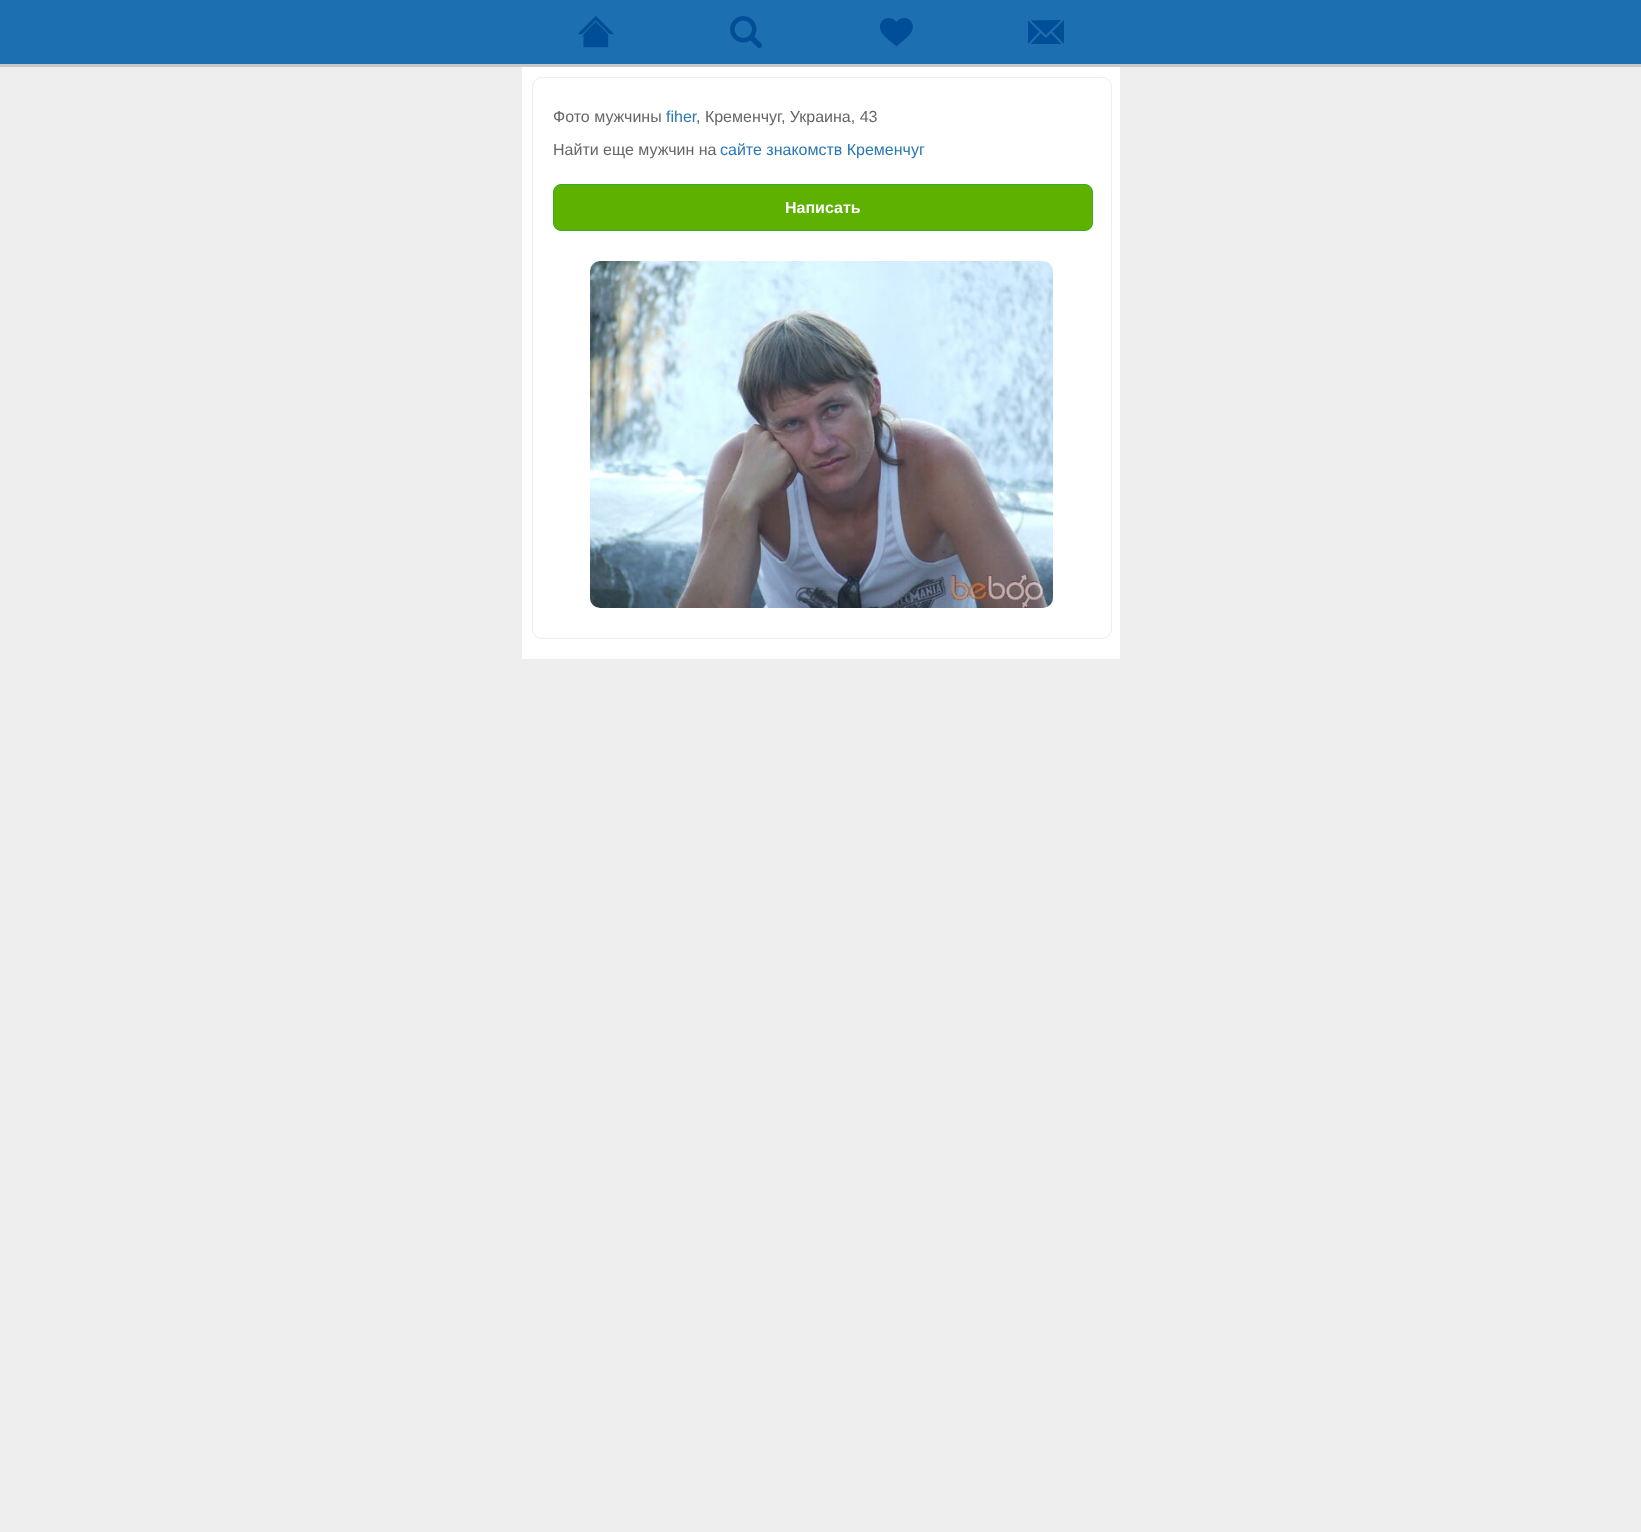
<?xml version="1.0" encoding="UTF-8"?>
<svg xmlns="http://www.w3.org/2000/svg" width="1641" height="1532">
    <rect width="100%" height="100%" fill="#EEEEEE"/>
    <rect x="0" y="0" width="1641" height="64" fill="#1C70B1"/>
    <rect x="0" y="64" width="1641" height="3" fill="#C8C8C8"/>
    <image x="578" y="16" width="36" height="32" href="img_01.png"/>
    <image x="730" y="16" width="33" height="32" href="img_02.png"/>
    <image x="880" y="18" width="33" height="29" href="img_03.png"/>
    <image x="1028" y="20" width="36" height="24" href="img_04.png"/>
    <rect x="522" y="67" width="598" height="592" fill="#FFFFFF"/>
    <rect x="532.5" y="77.5" width="579" height="561" rx="9.5" fill="none" stroke="#ECECEC"/>
    <text x="553" y="122" font-family="Liberation Sans" font-size="16" fill="#666666">Фото мужчины</text>
    <text x="666" y="122" font-family="Liberation Sans" font-size="16" fill="#2878B4">fiher</text>
    <text x="696" y="122" font-family="Liberation Sans" font-size="16" fill="#666666">, Кременчуг, Украина, 43</text>
    <text x="553" y="155" font-family="Liberation Sans" font-size="16" fill="#666666">Найти еще мужчин на</text>
    <text x="720" y="155" font-family="Liberation Sans" font-size="16" fill="#2878B4">сайте знакомств Кременчуг</text>
    <rect x="553.5" y="184.5" width="539" height="46" rx="7.5" fill="#5EB100" stroke="#36AC24"/>
    <text x="785" y="213" font-family="Liberation Sans" font-size="16" font-weight="700" fill="#FFFFFF">Написать</text>
    <image x="590" y="261" width="463" height="347" href="img_05.png"/>
</svg>
